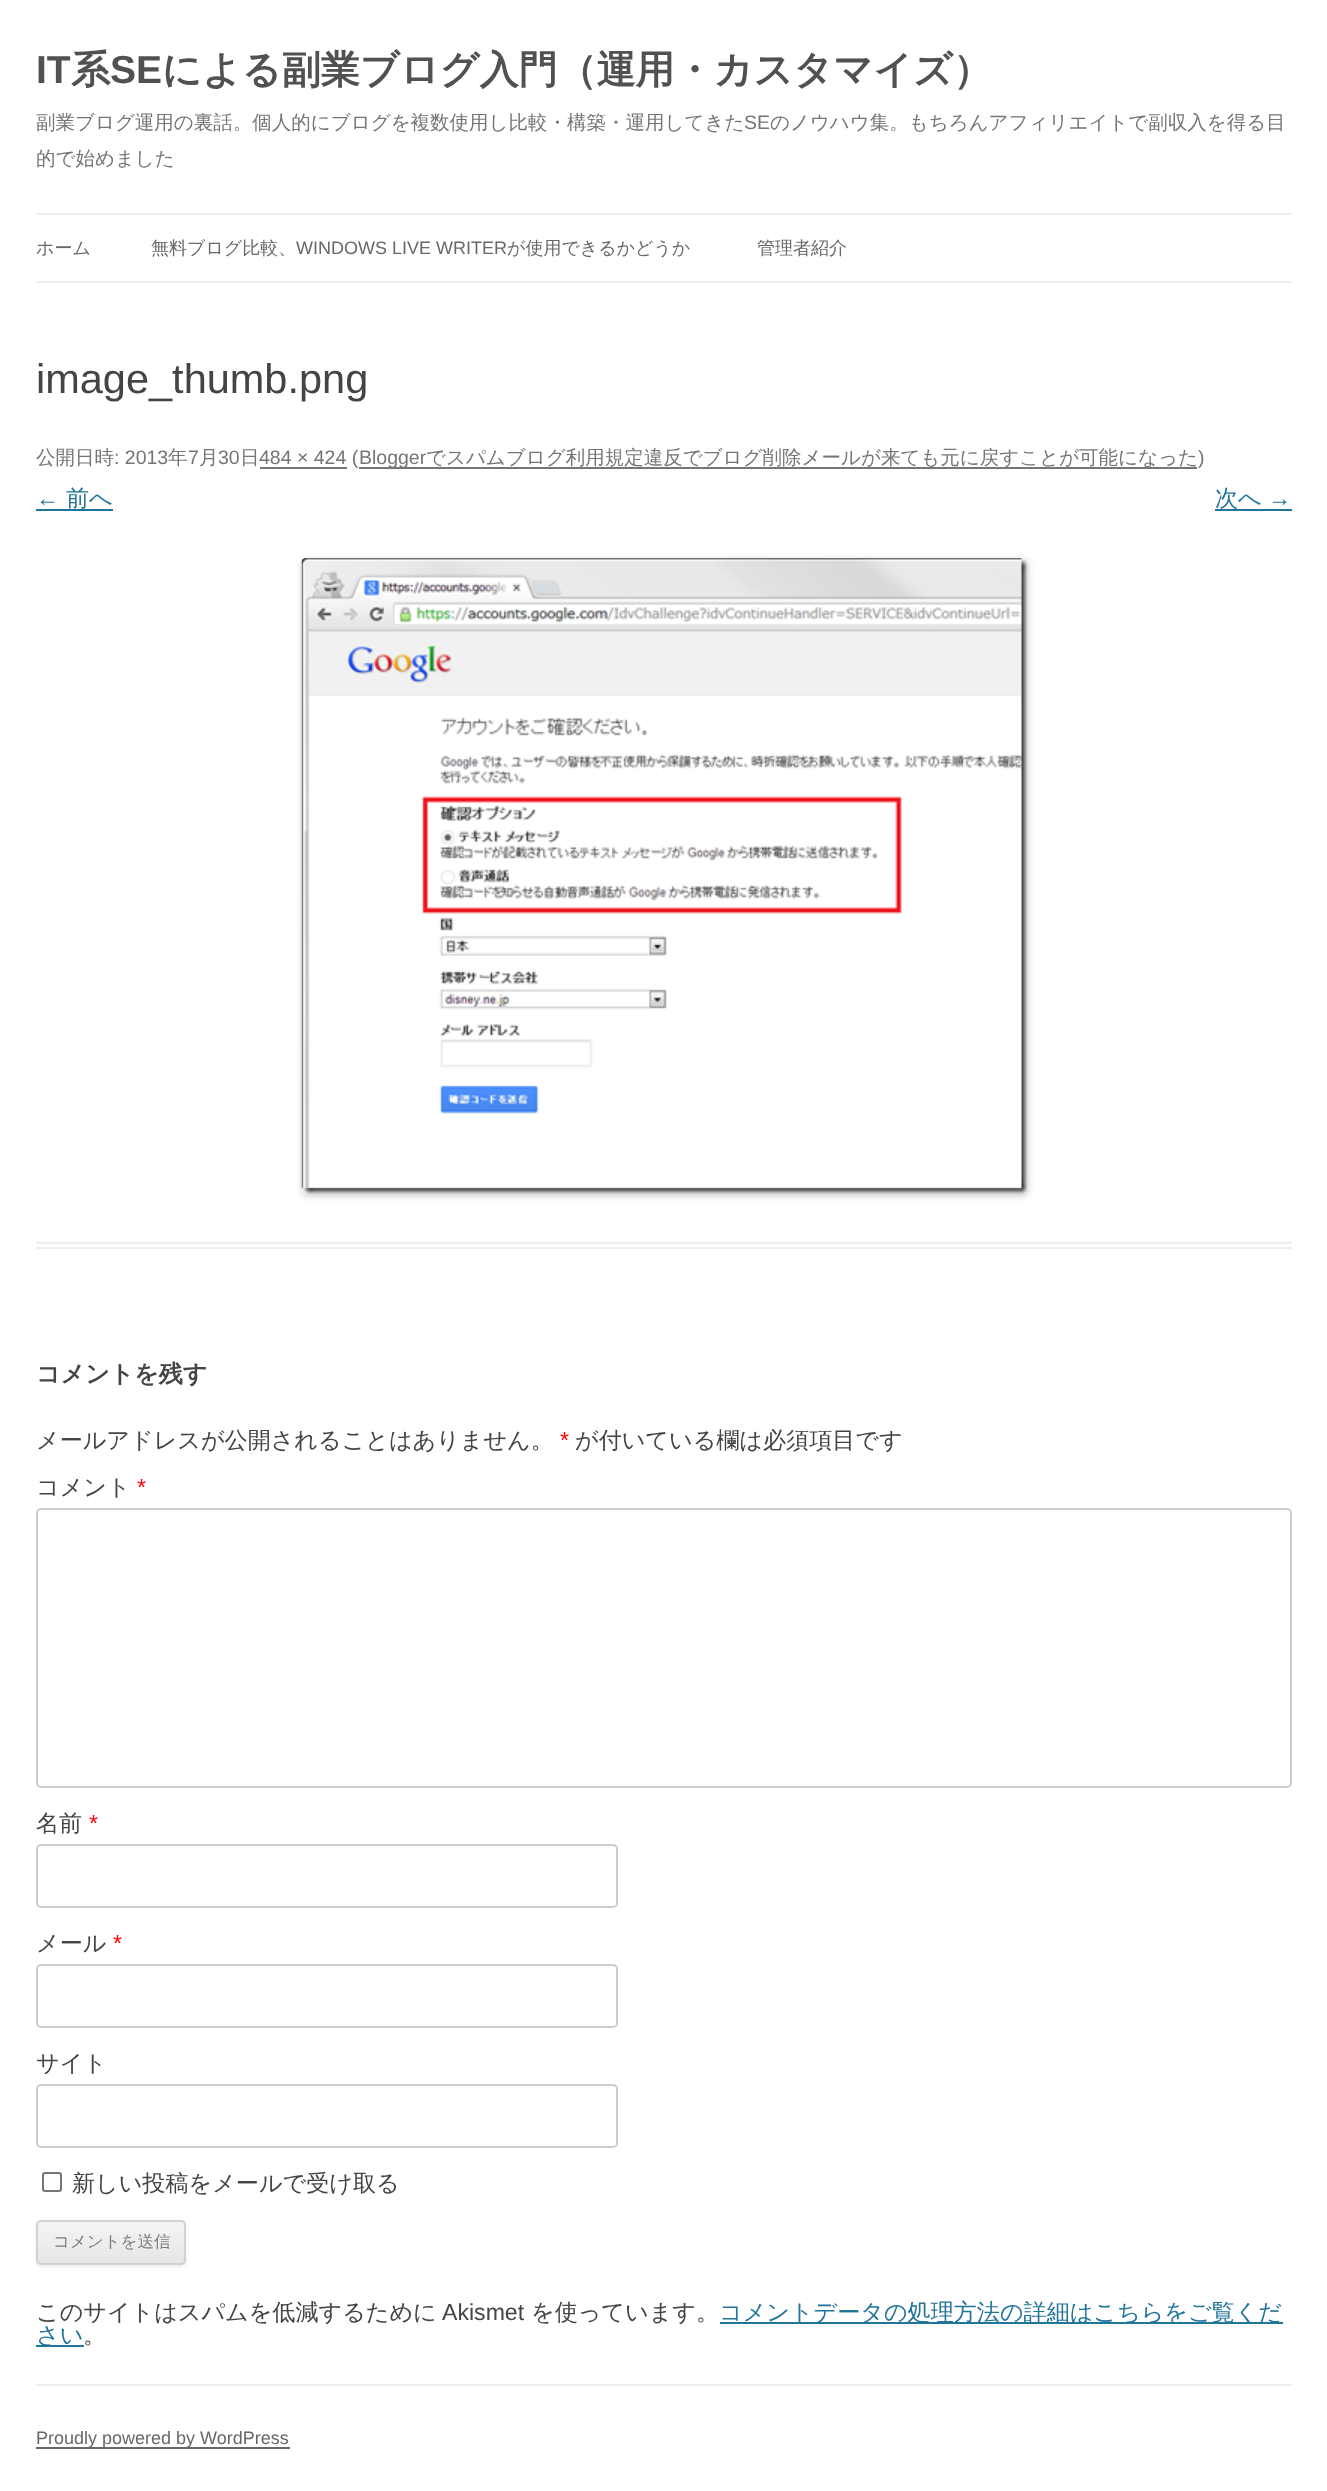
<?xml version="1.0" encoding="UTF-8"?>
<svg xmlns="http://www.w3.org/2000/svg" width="1327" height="2491">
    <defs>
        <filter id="blur1" x="-50%" y="-200%" width="200%" height="500%"><feGaussianBlur stdDeviation="3"/></filter>
        <filter id="blur2" x="-50%" y="-200%" width="200%" height="500%"><feGaussianBlur stdDeviation="1.5"/></filter>
        <clipPath id="clip1"><rect x="36" y="2220" width="150" height="45" rx="5"/></clipPath>
        <linearGradient id="g1" gradientUnits="userSpaceOnUse" x1="111" y1="2222" x2="111" y2="2264"><stop offset="0" stop-color="#F4F4F4"/><stop offset="1" stop-color="#E6E6E6"/></linearGradient>
    </defs>
    <rect width="100%" height="100%" fill="#FFFFFF"/>
    <text x="36" y="83" font-family="Liberation Sans" font-size="39" font-weight="700" fill="#515151">IT</text>
    <text x="71" y="83" font-family="WenQuanYi Zen Hei" font-size="39" font-weight="700" fill="#515151">系</text>
    <text x="110" y="83" font-family="Liberation Sans" font-size="39" font-weight="700" fill="#515151">SE</text>
    <text x="162" y="83" font-family="WenQuanYi Zen Hei" font-size="39" font-weight="700" fill="#515151">による副業ブログ入門（運用・カスタマイズ）</text>
    <text x="36" y="129" font-family="WenQuanYi Zen Hei" font-size="19.5" font-weight="500" fill="#757575">副業ブログ運用の裏話。個人的にブログを複数使用し比較・構築・運用してきた</text>
    <text x="744" y="129" font-family="Liberation Sans" font-size="19.5" fill="#757575">SE</text>
    <text x="770" y="129" font-family="WenQuanYi Zen Hei" font-size="19.5" font-weight="500" fill="#757575">のノウハウ集。もちろんアフィリエイトで副収入を得る目</text>
    <text x="36" y="165" font-family="WenQuanYi Zen Hei" font-size="19.5" font-weight="500" fill="#757575">的で始めました</text>
    <rect x="36" y="213" width="1256" height="2" fill="#EDEDED"/>
    <rect x="36" y="281" width="1256" height="2" fill="#EDEDED"/>
    <text x="36" y="254" font-family="WenQuanYi Zen Hei" font-size="18" font-weight="500" fill="#686868">ホーム</text>
    <text x="151" y="254" font-family="WenQuanYi Zen Hei" font-size="18" font-weight="500" fill="#686868">無料ブログ比較、</text>
    <text x="296" y="254" font-family="Liberation Sans" font-size="18" fill="#686868">WINDOWS LIVE WRITER</text>
    <text x="507" y="254" font-family="WenQuanYi Zen Hei" font-size="18" font-weight="500" fill="#686868">が使用できるかどうか</text>
    <text x="757" y="254" font-family="WenQuanYi Zen Hei" font-size="18" font-weight="500" fill="#686868">管理者紹介</text>
    <rect x="36" y="1242" width="1256" height="2" fill="#EDEDED"/>
    <rect x="36" y="1247" width="1256" height="2" fill="#EDEDED"/>
    <text x="36" y="393" font-family="Liberation Sans" font-size="41.5" fill="#444444">image_thumb.png</text>
    <text x="36" y="464" font-family="WenQuanYi Zen Hei" font-size="19.5" font-weight="500" fill="#757575">公開日時</text>
    <text x="114" y="464" font-family="Liberation Sans" font-size="19.5" fill="#757575">: 2013</text>
    <text x="168" y="464" font-family="WenQuanYi Zen Hei" font-size="19.5" font-weight="500" fill="#757575">年</text>
    <text x="188" y="464" font-family="Liberation Sans" font-size="19.5" fill="#757575">7</text>
    <text x="199" y="464" font-family="WenQuanYi Zen Hei" font-size="19.5" font-weight="500" fill="#757575">月</text>
    <text x="218" y="464" font-family="Liberation Sans" font-size="19.5" fill="#757575">30</text>
    <text x="240" y="464" font-family="WenQuanYi Zen Hei" font-size="19.5" font-weight="500" fill="#757575">日</text>
    <rect x="260" y="467" width="87" height="2" fill="#757575"/>
    <text x="259" y="464" font-family="Liberation Sans" font-size="19.5" fill="#757575">484 × 424 (</text>
    <rect x="359" y="467" width="838" height="2" fill="#757575"/>
    <text x="359" y="464" font-family="Liberation Sans" font-size="19.5" fill="#757575">Blogger</text>
    <text x="426" y="464" font-family="WenQuanYi Zen Hei" font-size="19.5" font-weight="500" fill="#757575">でスパムブログ利用規定違反でブログ削除メールが来ても元に戻すことが可能になった</text>
    <text x="1198" y="464" font-family="Liberation Sans" font-size="19.5" fill="#757575">)</text>
    <text x="36" y="506" font-family="Liberation Sans" font-size="23.1" fill="#21759B">←</text>
    <rect x="36" y="509" width="77" height="2" fill="#21759B"/>
    <text x="66" y="506" font-family="WenQuanYi Zen Hei" font-size="23.1" font-weight="500" fill="#21759B">前へ</text>
    <rect x="1215" y="509" width="77" height="2" fill="#21759B"/>
    <text x="1215" y="506" font-family="WenQuanYi Zen Hei" font-size="23.1" font-weight="500" fill="#21759B">次へ</text>
    <text x="1268" y="506" font-family="Liberation Sans" font-size="23.1" fill="#21759B">→</text>
    <rect x="302" y="560" width="726" height="636" rx="5" fill="#000000" fill-opacity="0.2" filter="url(#blur1)"/>
    <image x="301" y="558" width="727" height="636" href="img_01.png"/>
    <text x="36" y="1382" font-family="WenQuanYi Zen Hei" font-size="24" font-weight="700" fill="#444444">コメントを残す</text>
    <text x="36" y="1448" font-family="WenQuanYi Zen Hei" font-size="23.1" font-weight="500" fill="#444444">メールアドレスが公開されることはありません。</text>
    <text x="560" y="1448" font-family="Liberation Sans" font-size="23.1" fill="#FF0000">*</text>
    <text x="575" y="1448" font-family="WenQuanYi Zen Hei" font-size="23.1" font-weight="500" fill="#444444">が付いている欄は必須項目です</text>
    <text x="36" y="1495" font-family="WenQuanYi Zen Hei" font-size="23.1" font-weight="500" fill="#444444">コメント</text>
    <text x="137" y="1495" font-family="Liberation Sans" font-size="23.1" fill="#FF0000">*</text>
    <rect x="37" y="1509" width="1254" height="278" rx="4" fill="none" stroke="#CCCCCC" stroke-width="2"/>
    <text x="36" y="1831" font-family="WenQuanYi Zen Hei" font-size="23.1" font-weight="500" fill="#444444">名前</text>
    <text x="89" y="1831" font-family="Liberation Sans" font-size="23.1" fill="#FF0000">*</text>
    <rect x="37" y="1845" width="580" height="62" rx="4" fill="none" stroke="#CCCCCC" stroke-width="2"/>
    <text x="36" y="1951" font-family="WenQuanYi Zen Hei" font-size="23.1" font-weight="500" fill="#444444">メール</text>
    <text x="113" y="1951" font-family="Liberation Sans" font-size="23.1" fill="#FF0000">*</text>
    <rect x="37" y="1965" width="580" height="62" rx="4" fill="none" stroke="#CCCCCC" stroke-width="2"/>
    <text x="36" y="2071" font-family="WenQuanYi Zen Hei" font-size="23.1" font-weight="500" fill="#444444">サイト</text>
    <rect x="37" y="2085" width="580" height="62" rx="4" fill="none" stroke="#CCCCCC" stroke-width="2"/>
    <rect x="43" y="2173" width="18" height="18" rx="2" fill="none" stroke="#767676" stroke-width="2"/>
    <text x="72" y="2191" font-family="WenQuanYi Zen Hei" font-size="23.1" font-weight="500" fill="#444444">新しい投稿をメールで受け取る</text>
    <rect x="36" y="2222" width="150" height="45" rx="5" fill="#404040" fill-opacity="0.1" filter="url(#blur2)"/>
    <g clip-path="url(#clip1)">
        <rect x="36" y="2222" width="150" height="42" fill="url(#g1)"/>
    </g>
    <rect x="37" y="2221" width="148" height="43" rx="4" fill="none" stroke="#D2D2D2" stroke-width="2"/>
    <text x="53" y="2247" font-family="WenQuanYi Zen Hei" font-size="16.5" font-weight="500" fill="#7C7C7C">コメントを送信</text>
    <text x="36" y="2320" font-family="WenQuanYi Zen Hei" font-size="23.1" font-weight="500" fill="#444444">このサイトはスパムを低減するために</text>
    <text x="442" y="2320" font-family="Liberation Sans" font-size="23.1" fill="#444444">Akismet</text>
    <text x="531" y="2320" font-family="WenQuanYi Zen Hei" font-size="23.1" font-weight="500" fill="#444444">を使っています。</text>
    <rect x="720" y="2322" width="563" height="2" fill="#21759B"/>
    <text x="719" y="2320" font-family="WenQuanYi Zen Hei" font-size="23.1" font-weight="500" fill="#21759B">コメントデータの処理方法の詳細はこちらをご覧くだ</text>
    <rect x="36" y="2345" width="48" height="2" fill="#21759B"/>
    <text x="36" y="2343" font-family="WenQuanYi Zen Hei" font-size="23.1" font-weight="500" fill="#21759B">さい</text>
    <text x="83" y="2343" font-family="WenQuanYi Zen Hei" font-size="23.1" font-weight="500" fill="#444444">。</text>
    <rect x="36" y="2384" width="1256" height="2" fill="#EDEDED"/>
    <rect x="36" y="2447" width="254" height="2" fill="#686868"/>
    <text x="36" y="2444" font-family="Liberation Sans" font-size="18" fill="#686868">Proudly powered by WordPress</text>
</svg>
